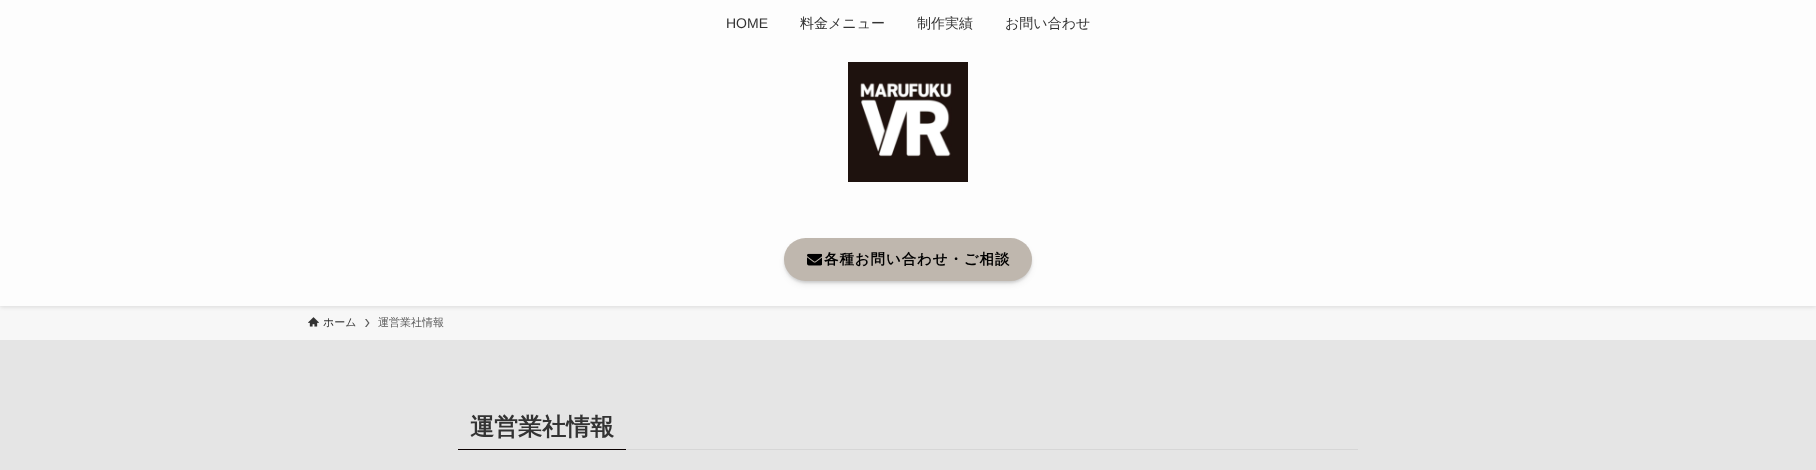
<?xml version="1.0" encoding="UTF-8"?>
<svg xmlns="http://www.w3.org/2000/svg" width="1816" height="470">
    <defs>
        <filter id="blur1" x="-50%" y="-200%" width="200%" height="500%"><feGaussianBlur stdDeviation="2"/></filter>
        <filter id="blur2" x="-50%" y="-200%" width="200%" height="500%"><feGaussianBlur stdDeviation="4"/></filter>
        <filter id="blur3" x="-50%" y="-200%" width="200%" height="500%"><feGaussianBlur stdDeviation="1"/></filter>
    </defs>
    <rect width="100%" height="100%" fill="#E5E5E5"/>
    <rect x="0" y="306" width="1816" height="34" fill="#F7F7F7"/>
    <rect x="0" y="1" width="1816" height="306" fill="#000000" fill-opacity="0.12" filter="url(#blur1)"/>
    <rect x="0" y="0" width="1816" height="306" fill="#FDFDFD"/>
    <text x="726" y="28" font-family="Liberation Sans" font-size="14" fill="#333333">HOME</text>
    <text x="800" y="28" font-family="WenQuanYi Zen Hei" font-size="14" font-weight="500" fill="#333333">料金メニュー</text>
    <text x="917" y="28" font-family="WenQuanYi Zen Hei" font-size="14" font-weight="500" fill="#333333">制作実績</text>
    <text x="1005" y="28" font-family="WenQuanYi Zen Hei" font-size="14" font-weight="500" fill="#333333">お問い合わせ</text>
    <image x="848" y="62" width="120" height="120" href="img_01.png"/>
    <rect x="788" y="246" width="240" height="35" rx="17.5" fill="#000000" fill-opacity="0.2" filter="url(#blur2)"/>
    <rect x="784" y="240" width="248" height="43" rx="21.5" fill="#000000" fill-opacity="0.1" filter="url(#blur3)"/>
    <rect x="784" y="238" width="248" height="43" rx="21.5" fill="#BFB7AE"/>
    <image x="807" y="253" width="15" height="13" href="img_02.png"/>
    <text x="824" y="264" font-family="WenQuanYi Zen Hei" font-size="14.4" font-weight="700" letter-spacing="1" fill="#000000">各種お問い合わせ・ご相談</text>
    <image x="308" y="317" width="11" height="10" href="img_03.png"/>
    <text x="323" y="326" font-family="WenQuanYi Zen Hei" font-size="11" font-weight="500" fill="#333333">ホーム</text>
    <path d="M 366.5 319 H 365 L 368 323 L 365 327 H 366.5 L 369.5 323 Z" fill="#5A5A5A"/>
    <text x="378" y="326" font-family="WenQuanYi Zen Hei" font-size="11" font-weight="500" fill="#5A5A5A">運営業社情報</text>
    <rect x="626" y="449" width="732" height="1" fill="#D6D6D6"/>
    <rect x="458" y="449" width="168" height="1" fill="#0A0000"/>
    <text x="470" y="435" font-family="WenQuanYi Zen Hei" font-size="24" font-weight="700" fill="#333333">運営業社情報</text>
</svg>
